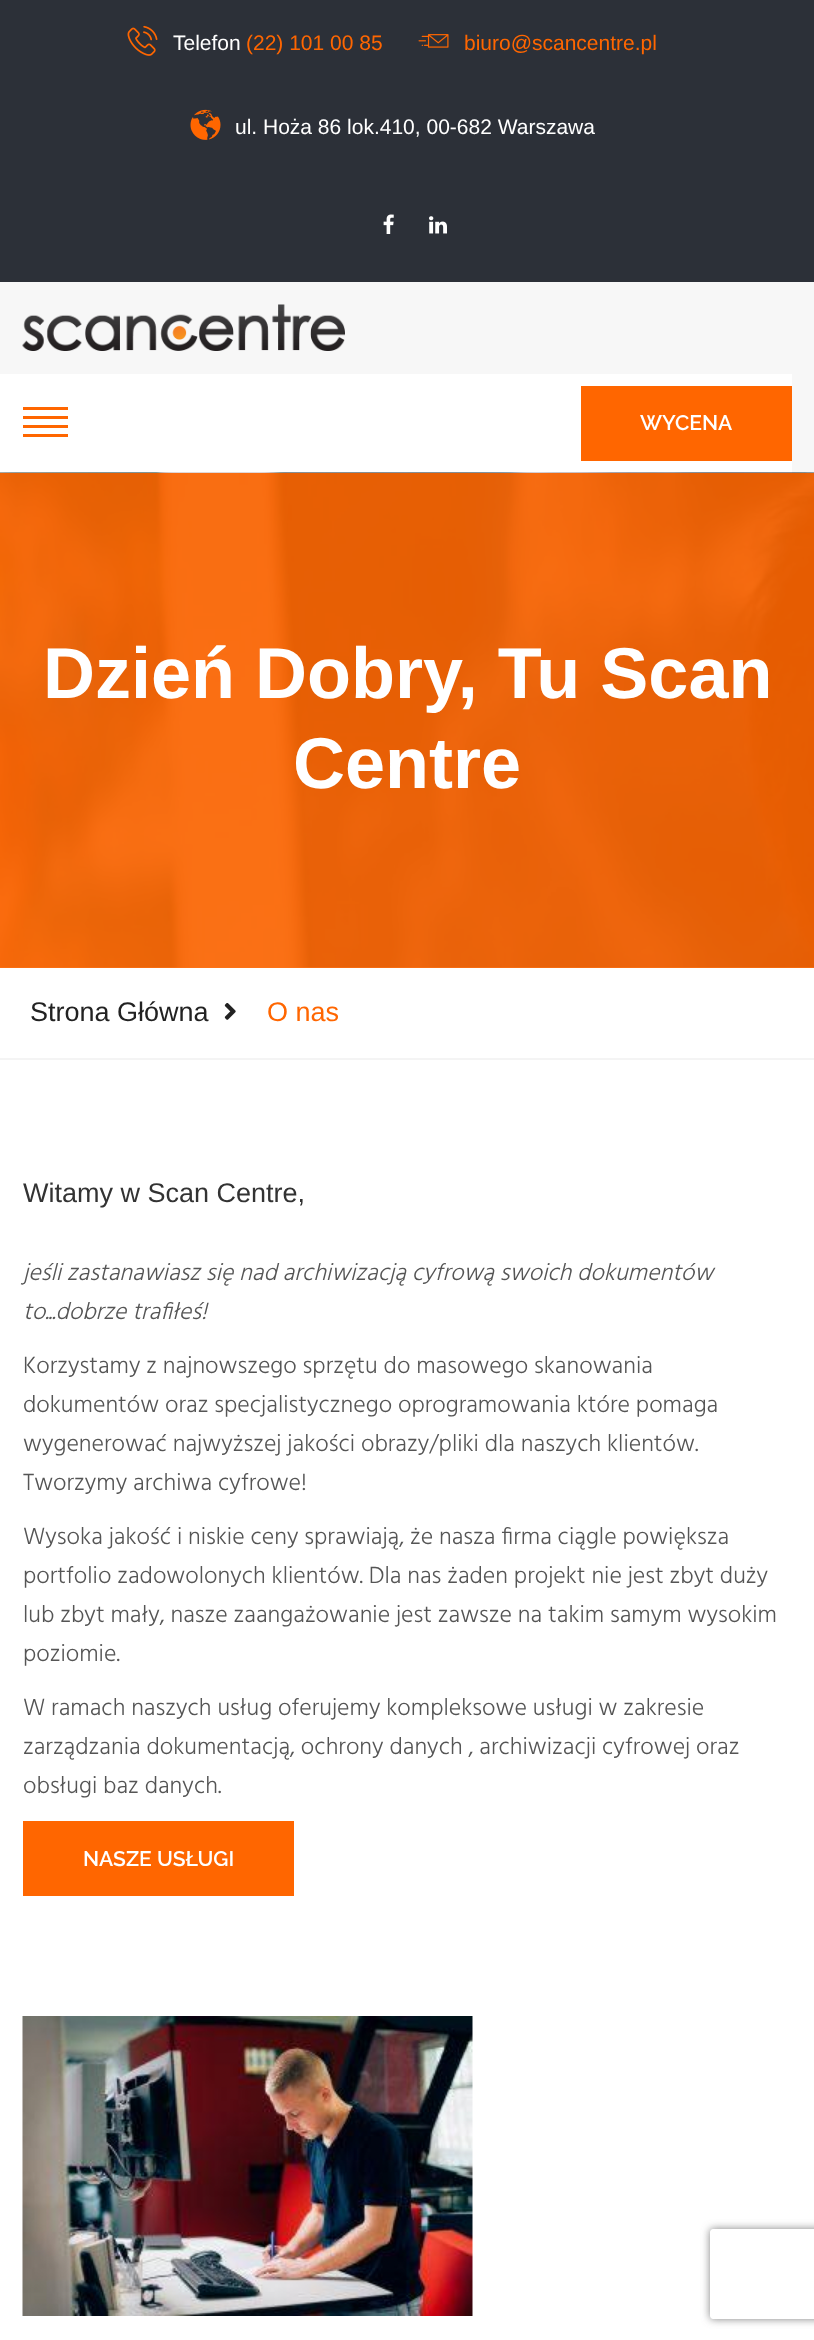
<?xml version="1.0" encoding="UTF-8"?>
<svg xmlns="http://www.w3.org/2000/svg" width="814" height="2340">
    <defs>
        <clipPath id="clip1"><path d="M 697 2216 H 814 V 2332 H 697 Z M 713 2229 H 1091 C 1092.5 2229 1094 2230.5 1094 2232 V 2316 C 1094 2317.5 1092.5 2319 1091 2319 H 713 C 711.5 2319 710 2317.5 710 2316 V 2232 C 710 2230.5 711.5 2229 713 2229 Z" clip-rule="evenodd"/></clipPath>
        <filter id="blur1" x="-50%" y="-200%" width="200%" height="500%"><feGaussianBlur stdDeviation="4"/></filter>
    </defs>
    <rect width="100%" height="100%" fill="#FFFFFF"/>
    <rect x="0" y="0" width="814" height="282" fill="#2C3038"/>
    <image x="127" y="25" width="31" height="31" href="img_01.png"/>
    <text x="173" y="50" font-family="Liberation Sans" font-size="21" fill="#FFFFFF">Telefon</text>
    <text x="246" y="50" font-family="Liberation Sans" font-size="21" fill="#FF6600">(22) 101 00 85</text>
    <image x="418" y="34" width="31" height="14" href="img_02.png"/>
    <text x="464" y="50" font-family="Liberation Sans" font-size="21" fill="#FF6600">biuro@scancentre.pl</text>
    <image x="190" y="109" width="31" height="31" href="img_03.png"/>
    <text x="235" y="134" font-family="Liberation Sans" font-size="21" fill="#FFFFFF">ul. Hoża 86 lok.410, 00-682 Warszawa</text>
    <image x="383" y="214" width="11" height="20" href="img_04.png"/>
    <image x="429" y="216" width="18" height="18" href="img_05.png"/>
    <rect x="0" y="282" width="814" height="191" fill="#F7F7F7"/>
    <image x="22" y="304" width="323" height="47" href="img_06.png"/>
    <rect x="0" y="374" width="792" height="99" fill="#FFFFFF"/>
    <rect x="23" y="407" width="45" height="3" fill="#FF6600"/>
    <rect x="23" y="416" width="45" height="3" fill="#FF6600"/>
    <rect x="23" y="425" width="45" height="3" fill="#FF6600"/>
    <rect x="23" y="434" width="45" height="3" fill="#FF6600"/>
    <rect x="581" y="386" width="211" height="75" fill="#FF6600"/>
    <text x="640" y="430" font-family="Raleway" font-size="21" font-weight="600" fill="#FFFFFF">WYCENA</text>
    <image x="0" y="472" width="814" height="496" href="img_07.png"/>
    <rect x="0" y="473" width="814" height="495" fill="#FF6600" fill-opacity="0.9"/>
    <text x="43" y="698" font-family="Liberation Sans" font-size="72" font-weight="700" fill="#FFFFFF">Dzień Dobry, Tu Scan</text>
    <text x="293" y="788" font-family="Liberation Sans" font-size="72" font-weight="700" fill="#FFFFFF">Centre</text>
    <rect x="0" y="1058" width="814" height="2" fill="#F4F4F4"/>
    <text x="30" y="1021" font-family="Liberation Sans" font-size="27" fill="#222222">Strona Główna</text>
    <image x="224" y="1003" width="12" height="17" href="img_08.png"/>
    <text x="267" y="1021" font-family="Liberation Sans" font-size="27" fill="#FF6600">O nas</text>
    <text x="23" y="1202" font-family="Liberation Sans" font-size="27" fill="#333333">Witamy w Scan Centre,</text>
    <text font-family="Hind" font-size="24" font-weight="300" font-style="italic" fill="#555555">
        <tspan x="23" y="1280">jeśli zastanawiasz się nad archiwizacją cyfrową swoich dokumentów</tspan>
        <tspan x="23" y="1319">to...dobrze trafiłeś!</tspan>
    </text>
    <text font-family="Hind" font-size="24" font-weight="300" fill="#555555">
        <tspan x="23" y="1373">Korzystamy z najnowszego sprzętu do masowego skanowania</tspan>
        <tspan x="23" y="1412">dokumentów oraz specjalistycznego oprogramowania które pomaga</tspan>
        <tspan x="23" y="1451">wygenerować najwyższej jakości obrazy/pliki dla naszych klientów.</tspan>
        <tspan x="23" y="1490">Tworzymy archiwa cyfrowe!</tspan>
    </text>
    <text font-family="Hind" font-size="24" font-weight="300" fill="#555555">
        <tspan x="23" y="1544">Wysoka jakość i niskie ceny sprawiają, że nasza firma ciągle powiększa</tspan>
        <tspan x="23" y="1583">portfolio zadowolonych klientów. Dla nas żaden projekt nie jest zbyt duży</tspan>
        <tspan x="23" y="1622">lub zbyt mały, nasze zaangażowanie jest zawsze na takim samym wysokim</tspan>
        <tspan x="23" y="1661">poziomie.</tspan>
    </text>
    <text font-family="Hind" font-size="24" font-weight="300" fill="#555555">
        <tspan x="23" y="1715">W ramach naszych usług oferujemy kompleksowe usługi w zakresie</tspan>
        <tspan x="23" y="1754">zarządzania dokumentacją, ochrony danych , archiwizacji cyfrowej oraz</tspan>
        <tspan x="23" y="1793">obsługi baz danych.</tspan>
    </text>
    <rect x="23" y="1821" width="271" height="75" fill="#FF6600"/>
    <text x="83" y="1866" font-family="Raleway" font-size="21" font-weight="600" fill="#FFFFFF">NASZE USŁUGI</text>
    <image x="22" y="2016" width="451" height="300" href="img_09.png"/>
    <g clip-path="url(#clip1)">
        <rect x="710" y="2229" width="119" height="90" rx="3" fill="#808080" filter="url(#blur1)"/>
    </g>
</svg>
